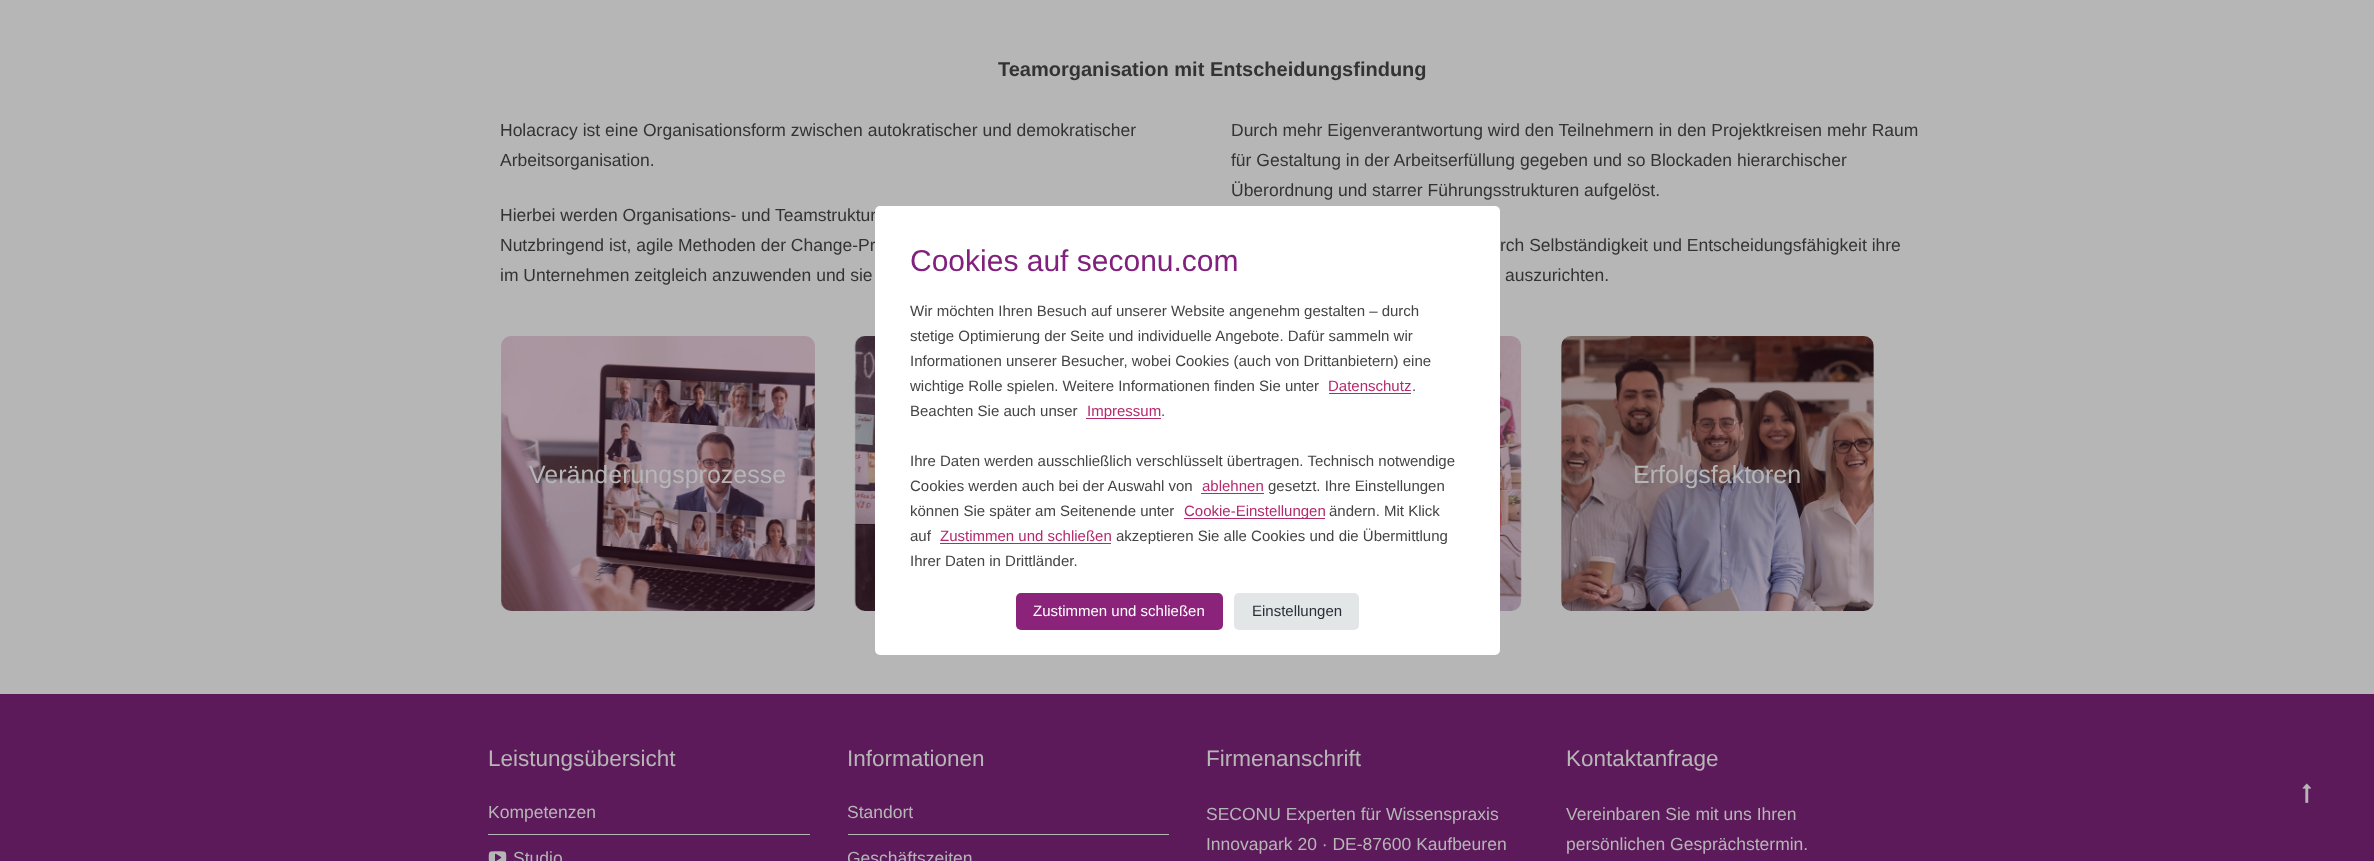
<?xml version="1.0" encoding="UTF-8"?>
<svg xmlns="http://www.w3.org/2000/svg" width="2374" height="861">
    <defs>
        <clipPath id="clip1"><rect x="848" y="835" width="321" height="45"/></clipPath>
    </defs>
    <rect width="100%" height="100%" fill="#B6B6B6"/>
    <text x="998" y="76" font-family="Liberation Sans" font-size="20" font-weight="700" fill="#333333">Teamorganisation mit Entscheidungsfindung</text>
    <text font-family="Liberation Sans" font-size="17.5" fill="#333333">
        <tspan x="500" y="136">Holacracy ist eine Organisationsform zwischen autokratischer und demokratischer</tspan>
        <tspan x="500" y="166">Arbeitsorganisation.</tspan>
    </text>
    <text font-family="Liberation Sans" font-size="17.5" fill="#333333">
        <tspan x="500" y="221">Hierbei werden Organisations- und Teamstruktur</tspan>
        <tspan x="500" y="251">Nutzbringend ist, agile Methoden der Change-Pr</tspan>
        <tspan x="500" y="281">im Unternehmen zeitgleich anzuwenden und sie</tspan>
    </text>
    <text font-family="Liberation Sans" font-size="17.5" fill="#333333">
        <tspan x="1231" y="136">Durch mehr Eigenverantwortung wird den Teilnehmern in den Projektkreisen mehr Raum</tspan>
        <tspan x="1231" y="166">für Gestaltung in der Arbeitserfüllung gegeben und so Blockaden hierarchischer</tspan>
        <tspan x="1231" y="196">Überordnung und starrer Führungsstrukturen aufgelöst.</tspan>
    </text>
    <text x="1500" y="251" font-family="Liberation Sans" font-size="17.5" fill="#333333">rch Selbständigkeit und Entscheidungsfähigkeit ihre</text>
    <text x="1505" y="281" font-family="Liberation Sans" font-size="17.5" fill="#333333">auszurichten.</text>
    <image x="501" y="336" width="314" height="275" href="img_01.png"/>
    <rect x="501" y="336" width="314" height="275" rx="10" fill="#802050" fill-opacity="0.2"/>
    <text x="529" y="483" font-family="Liberation Sans" font-size="25" fill="#B6B6B6">Veränderungsprozesse</text>
    <image x="854" y="336" width="21" height="275" href="img_02.png"/>
    <rect x="855" y="336" width="313" height="275" rx="10" fill="#802050" fill-opacity="0.2"/>
    <image x="1500" y="336" width="22" height="275" href="img_03.png"/>
    <rect x="1208" y="336" width="313" height="275" rx="10" fill="#802050" fill-opacity="0.2"/>
    <image x="1561" y="336" width="313" height="275" href="img_04.png"/>
    <rect x="1561" y="336" width="313" height="275" rx="10" fill="#802050" fill-opacity="0.15"/>
    <text x="1633" y="483" font-family="Liberation Sans" font-size="25" fill="#B6B6B6">Erfolgsfaktoren</text>
    <rect x="0" y="694" width="2374" height="167" fill="#5D1A5B"/>
    <text x="488" y="766" font-family="Liberation Sans" font-size="22.5" fill="#B6B6B6">Leistungsübersicht</text>
    <text x="488" y="818" font-family="Liberation Sans" font-size="17.5" fill="#B6B6B6">Kompetenzen</text>
    <rect x="488" y="834" width="322" height="1" fill="#B6B6B6"/>
    <image x="488" y="851" width="19" height="10" href="img_05.png"/>
    <text x="513" y="864" font-family="Liberation Sans" font-size="17.5" fill="#B6B6B6">Studio</text>
    <text x="847" y="766" font-family="Liberation Sans" font-size="22.5" fill="#B6B6B6">Informationen</text>
    <text x="847" y="818" font-family="Liberation Sans" font-size="17.5" fill="#B6B6B6">Standort</text>
    <rect x="848" y="834" width="321" height="1" fill="#B6B6B6"/>
    <g clip-path="url(#clip1)">
        <text x="847" y="864" font-family="Liberation Sans" font-size="17.5" fill="#B6B6B6">Geschäftszeiten</text>
    </g>
    <text x="1206" y="766" font-family="Liberation Sans" font-size="22.5" fill="#B6B6B6">Firmenanschrift</text>
    <text font-family="Liberation Sans" font-size="17.5" fill="#B6B6B6">
        <tspan x="1206" y="820">SECONU Experten für Wissenspraxis</tspan>
        <tspan x="1206" y="850">Innovapark 20 · DE-87600 Kaufbeuren</tspan>
    </text>
    <text x="1566" y="766" font-family="Liberation Sans" font-size="22.5" fill="#B6B6B6">Kontaktanfrage</text>
    <text font-family="Liberation Sans" font-size="17.5" fill="#B6B6B6">
        <tspan x="1566" y="820">Vereinbaren Sie mit uns Ihren</tspan>
        <tspan x="1566" y="850">persönlichen Gesprächstermin.</tspan>
    </text>
    <image x="2302" y="783" width="9" height="20" href="img_06.png"/>
    <rect x="875" y="206" width="625" height="449" rx="5" fill="#FFFFFF"/>
    <text x="910" y="271" font-family="Liberation Sans" font-size="30" fill="#80217E">Cookies auf seconu.com</text>
    <text font-family="Liberation Sans" font-size="15" fill="#444444">
        <tspan x="910" y="316">Wir möchten Ihren Besuch auf unserer Website angenehm gestalten – durch</tspan>
        <tspan x="910" y="341">stetige Optimierung der Seite und individuelle Angebote. Dafür sammeln wir</tspan>
        <tspan x="910" y="366">Informationen unserer Besucher, wobei Cookies (auch von Drittanbietern) eine</tspan>
        <tspan x="910" y="391">wichtige Rolle spielen. Weitere Informationen finden Sie unter</tspan>
    </text>
    <text x="1328" y="391" font-family="Liberation Sans" font-size="15" fill="#B3296E">Datenschutz</text>
    <rect x="1329" y="393" width="82" height="1" fill="#B3296E"/>
    <text x="1412" y="391" font-family="Liberation Sans" font-size="15" fill="#444444">.</text>
    <text x="910" y="416" font-family="Liberation Sans" font-size="15" fill="#444444">Beachten Sie auch unser</text>
    <rect x="1086" y="418" width="75" height="1" fill="#B3296E"/>
    <text x="1087" y="416" font-family="Liberation Sans" font-size="15" fill="#B3296E">Impressum</text>
    <text x="1161" y="416" font-family="Liberation Sans" font-size="15" fill="#444444">.</text>
    <text font-family="Liberation Sans" font-size="15" fill="#444444">
        <tspan x="910" y="466">Ihre Daten werden ausschließlich verschlüsselt übertragen. Technisch notwendige</tspan>
        <tspan x="910" y="491">Cookies werden auch bei der Auswahl von</tspan>
    </text>
    <text x="1202" y="491" font-family="Liberation Sans" font-size="15" fill="#B3296E">ablehnen</text>
    <rect x="1201" y="493" width="63" height="1" fill="#B3296E"/>
    <text x="1268" y="491" font-family="Liberation Sans" font-size="15" fill="#444444">gesetzt. Ihre Einstellungen</text>
    <text x="910" y="516" font-family="Liberation Sans" font-size="15" fill="#444444">können Sie später am Seitenende unter</text>
    <rect x="1184" y="518" width="141" height="1" fill="#B3296E"/>
    <text x="1184" y="516" font-family="Liberation Sans" font-size="15" fill="#B3296E">Cookie-Einstellungen</text>
    <text x="1329" y="516" font-family="Liberation Sans" font-size="15" fill="#444444">ändern. Mit Klick</text>
    <text x="910" y="541" font-family="Liberation Sans" font-size="15" fill="#444444">auf</text>
    <text x="940" y="541" font-family="Liberation Sans" font-size="15" fill="#B3296E">Zustimmen und schließen</text>
    <rect x="940" y="543" width="171" height="1" fill="#B3296E"/>
    <text x="1116" y="541" font-family="Liberation Sans" font-size="15" fill="#444444">akzeptieren Sie alle Cookies und die Übermittlung</text>
    <text x="910" y="566" font-family="Liberation Sans" font-size="15" fill="#444444">Ihrer Daten in Drittländer.</text>
    <rect x="1016" y="593" width="207" height="37" rx="5" fill="#8B237A"/>
    <text x="1033" y="616" font-family="Liberation Sans" font-size="15" fill="#FFFFFF">Zustimmen und schließen</text>
    <rect x="1234" y="593" width="125" height="37" rx="5" fill="#E2E6E7"/>
    <text x="1252" y="616" font-family="Liberation Sans" font-size="15" fill="#292F38">Einstellungen</text>
</svg>
